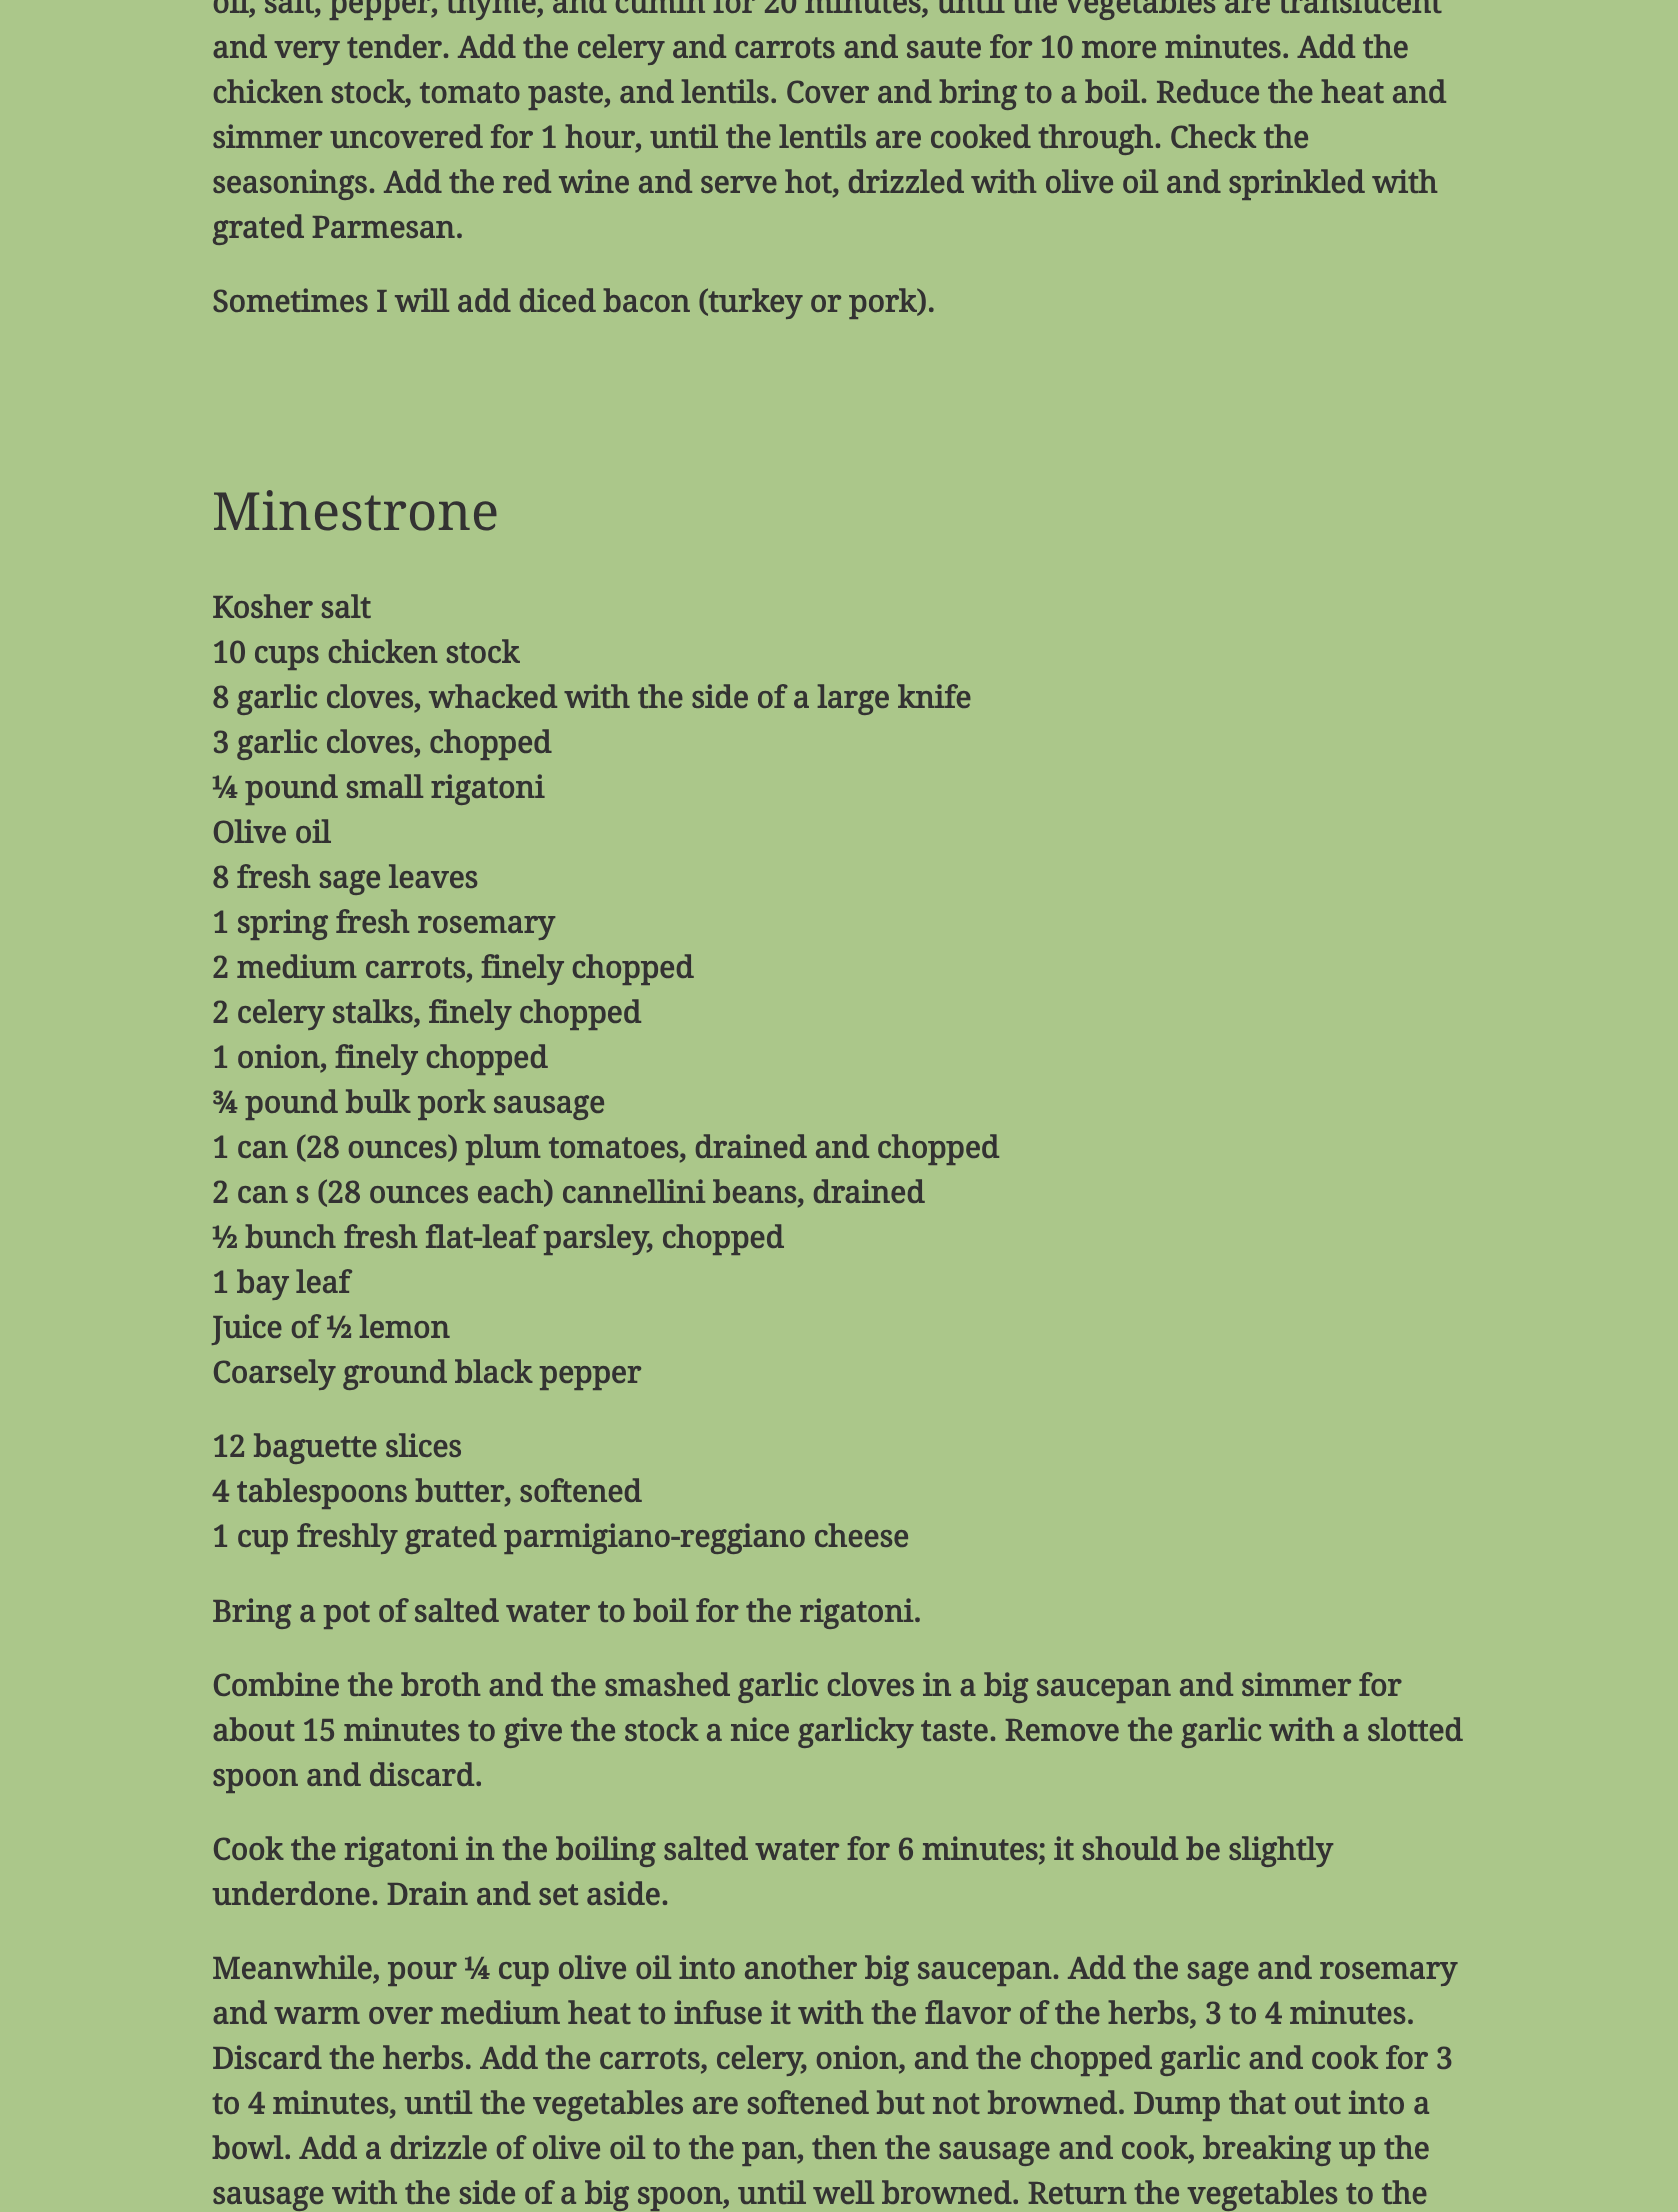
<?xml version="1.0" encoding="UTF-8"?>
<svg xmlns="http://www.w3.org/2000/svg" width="1678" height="2212">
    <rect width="100%" height="100%" fill="#ABC78A"/>
    <text font-family="Droid Serif" font-size="30" font-weight="700" fill="#333232">
        <tspan x="212" y="13">oil, salt, pepper, thyme, and cumin for 20 minutes, until the vegetables are translucent</tspan>
        <tspan x="212" y="58">and very tender. Add the celery and carrots and saute for 10 more minutes. Add the</tspan>
        <tspan x="212" y="103">chicken stock, tomato paste, and lentils. Cover and bring to a boil. Reduce the heat and</tspan>
        <tspan x="212" y="148">simmer uncovered for 1 hour, until the lentils are cooked through. Check the</tspan>
        <tspan x="212" y="193">seasonings. Add the red wine and serve hot, drizzled with olive oil and sprinkled with</tspan>
        <tspan x="212" y="238">grated Parmesan.</tspan>
    </text>
    <text x="212" y="312" font-family="Droid Serif" font-size="30" font-weight="700" fill="#333232">Sometimes I will add diced bacon (turkey or pork).</text>
    <text x="212" y="530" font-family="Droid Serif" font-size="52.5" fill="#333232">Minestrone</text>
    <text font-family="Droid Serif" font-size="30" font-weight="700" fill="#333232">
        <tspan x="212" y="618">Kosher salt</tspan>
        <tspan x="212" y="663">10 cups chicken stock</tspan>
        <tspan x="212" y="708">8 garlic cloves, whacked with the side of a large knife</tspan>
        <tspan x="212" y="753">3 garlic cloves, chopped</tspan>
        <tspan x="212" y="798">¼ pound small rigatoni</tspan>
        <tspan x="212" y="843">Olive oil</tspan>
        <tspan x="212" y="888">8 fresh sage leaves</tspan>
        <tspan x="212" y="933">1 spring fresh rosemary</tspan>
        <tspan x="212" y="978">2 medium carrots, finely chopped</tspan>
        <tspan x="212" y="1023">2 celery stalks, finely chopped</tspan>
        <tspan x="212" y="1068">1 onion, finely chopped</tspan>
        <tspan x="212" y="1113">¾ pound bulk pork sausage</tspan>
        <tspan x="212" y="1158">1 can (28 ounces) plum tomatoes, drained and chopped</tspan>
        <tspan x="212" y="1203">2 can s (28 ounces each) cannellini beans, drained</tspan>
        <tspan x="212" y="1248">½ bunch fresh flat-leaf parsley, chopped</tspan>
        <tspan x="212" y="1293">1 bay leaf</tspan>
        <tspan x="212" y="1338">Juice of ½ lemon</tspan>
        <tspan x="212" y="1383">Coarsely ground black pepper</tspan>
    </text>
    <text font-family="Droid Serif" font-size="30" font-weight="700" fill="#333232">
        <tspan x="212" y="1457">12 baguette slices</tspan>
        <tspan x="212" y="1502">4 tablespoons butter, softened</tspan>
        <tspan x="212" y="1547">1 cup freshly grated parmigiano-reggiano cheese</tspan>
    </text>
    <text x="212" y="1622" font-family="Droid Serif" font-size="30" font-weight="700" fill="#333232">Bring a pot of salted water to boil for the rigatoni.</text>
    <text font-family="Droid Serif" font-size="30" font-weight="700" fill="#333232">
        <tspan x="212" y="1696">Combine the broth and the smashed garlic cloves in a big saucepan and simmer for</tspan>
        <tspan x="212" y="1741">about 15 minutes to give the stock a nice garlicky taste. Remove the garlic with a slotted</tspan>
        <tspan x="212" y="1786">spoon and discard.</tspan>
    </text>
    <text font-family="Droid Serif" font-size="30" font-weight="700" fill="#333232">
        <tspan x="212" y="1860">Cook the rigatoni in the boiling salted water for 6 minutes; it should be slightly</tspan>
        <tspan x="212" y="1905">underdone. Drain and set aside.</tspan>
    </text>
    <text font-family="Droid Serif" font-size="30" font-weight="700" fill="#333232">
        <tspan x="212" y="1979">Meanwhile, pour ¼ cup olive oil into another big saucepan. Add the sage and rosemary</tspan>
        <tspan x="212" y="2024">and warm over medium heat to infuse it with the flavor of the herbs, 3 to 4 minutes.</tspan>
        <tspan x="212" y="2069">Discard the herbs. Add the carrots, celery, onion, and the chopped garlic and cook for 3</tspan>
        <tspan x="212" y="2114">to 4 minutes, until the vegetables are softened but not browned. Dump that out into a</tspan>
        <tspan x="212" y="2159">bowl. Add a drizzle of olive oil to the pan, then the sausage and cook, breaking up the</tspan>
        <tspan x="212" y="2204">sausage with the side of a big spoon, until well browned. Return the vegetables to the</tspan>
    </text>
</svg>
